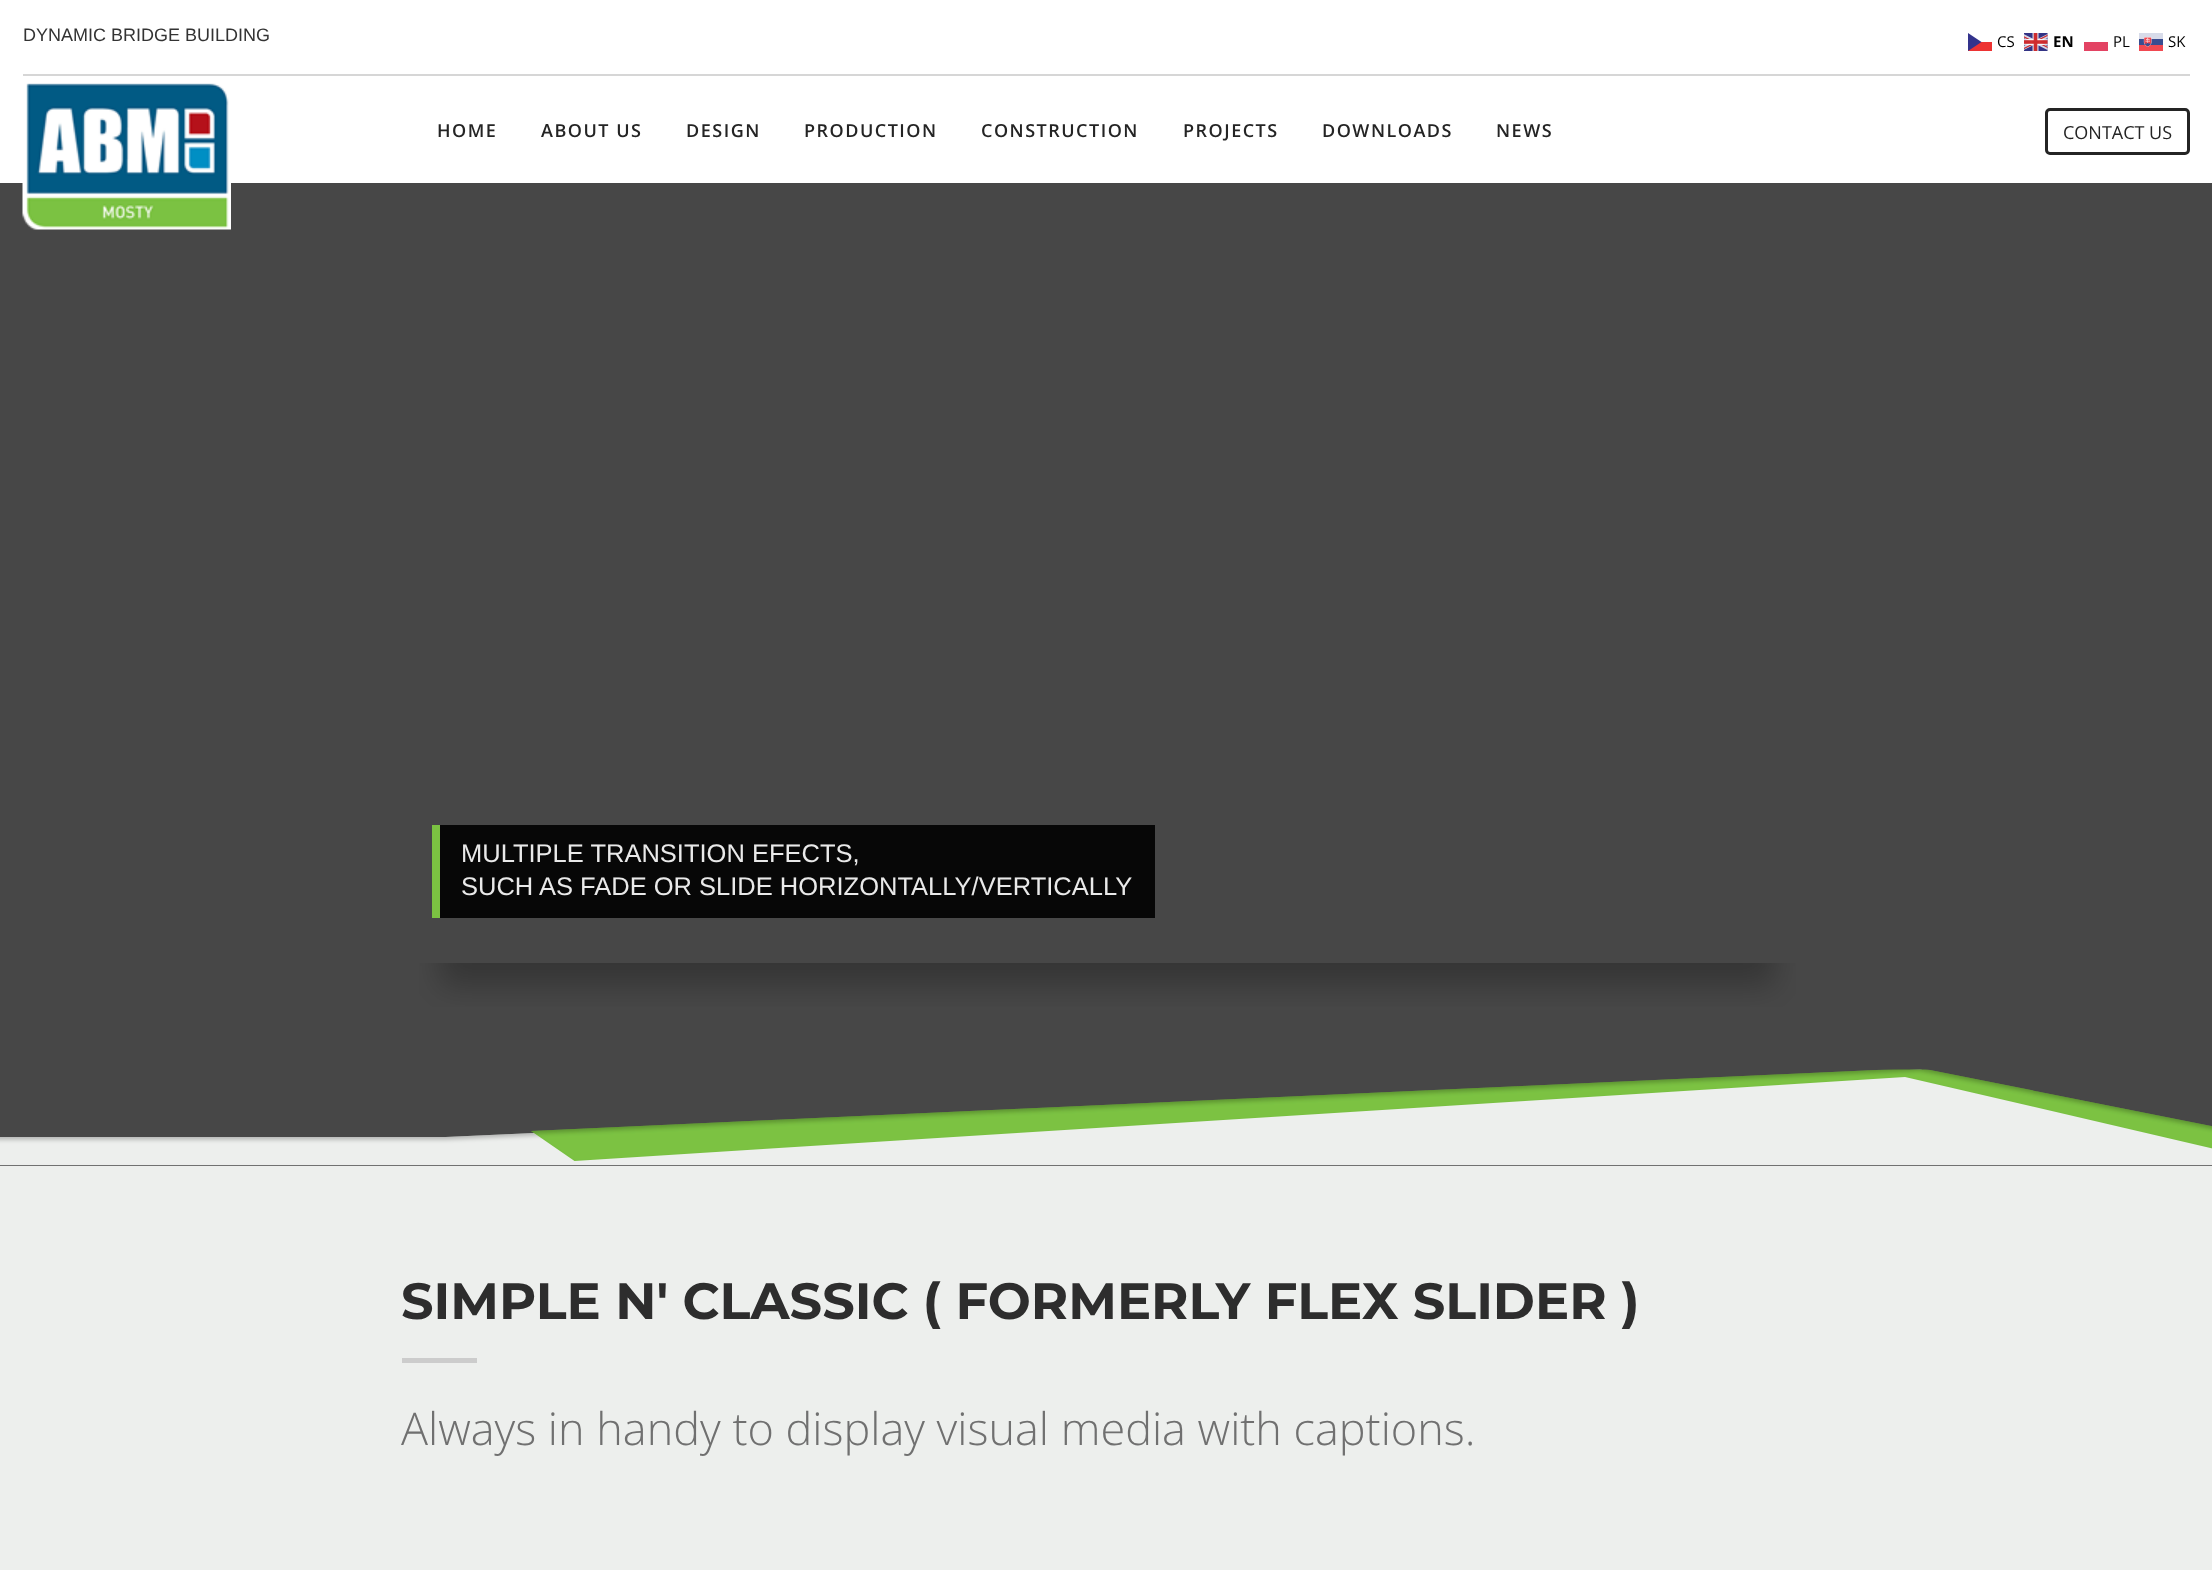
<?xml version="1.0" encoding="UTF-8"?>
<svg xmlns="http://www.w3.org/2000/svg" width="2212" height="1570">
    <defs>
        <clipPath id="clip1"><rect x="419" y="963" width="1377" height="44"/></clipPath>
        <filter id="blur1" x="-50%" y="-200%" width="200%" height="500%"><feGaussianBlur stdDeviation="15"/></filter>
    </defs>
    <rect width="100%" height="100%" fill="#EDEFED"/>
    <rect x="0" y="0" width="2212" height="183" fill="#FFFFFF"/>
    <text x="23" y="41" font-family="Liberation Sans" font-size="18" fill="#333333">DYNAMIC BRIDGE BUILDING</text>
    <rect x="23" y="74" width="2167" height="2" fill="#D6D6D6"/>
    <rect x="0" y="183" width="2212" height="983" fill="#474747"/>
    <image x="22" y="83" width="209" height="147" href="img_01.png"/>
    <text x="437" y="137" font-family="Open Sans" font-size="18" font-weight="600" letter-spacing="1.5" fill="#242424">HOME</text>
    <text x="541" y="137" font-family="Open Sans" font-size="18" font-weight="600" letter-spacing="1.5" fill="#242424">ABOUT US</text>
    <text x="686" y="137" font-family="Open Sans" font-size="18" font-weight="600" letter-spacing="1.5" fill="#242424">DESIGN</text>
    <text x="804" y="137" font-family="Open Sans" font-size="18" font-weight="600" letter-spacing="1.5" fill="#242424">PRODUCTION</text>
    <text x="981" y="137" font-family="Open Sans" font-size="18" font-weight="600" letter-spacing="1.5" fill="#242424">CONSTRUCTION</text>
    <text x="1183" y="137" font-family="Open Sans" font-size="18" font-weight="600" letter-spacing="1.5" fill="#242424">PROJECTS</text>
    <text x="1322" y="137" font-family="Open Sans" font-size="18" font-weight="600" letter-spacing="1.5" fill="#242424">DOWNLOADS</text>
    <text x="1496" y="137" font-family="Open Sans" font-size="18" font-weight="600" letter-spacing="1.5" fill="#242424">NEWS</text>
    <rect x="2046.5" y="109.5" width="142" height="44" rx="3.5" fill="none" stroke="#242424" stroke-width="3"/>
    <text x="2063" y="139" font-family="Open Sans" font-size="18" fill="#242424">CONTACT US</text>
    <g clip-path="url(#clip1)">
        <rect x="440" y="356" width="1335" height="630" fill="#000000" fill-opacity="0.25" filter="url(#blur1)"/>
    </g>
    <rect x="440" y="825" width="715" height="93" fill="#070707"/>
    <rect x="432" y="825" width="8" height="93" fill="#7BC242"/>
    <text font-family="Liberation Sans" font-size="25.5" fill="#E9E9E9">
        <tspan x="461" y="862">MULTIPLE TRANSITION EFECTS,</tspan>
        <tspan x="461" y="895">SUCH AS FADE OR SLIDE HORIZONTALLY/VERTICALLY</tspan>
    </text>
    <image x="0" y="1069" width="2212" height="97" href="img_02.png"/>
    <text x="401" y="1319" font-family="Montserrat" font-size="51" font-weight="100" fill="#2D2D2D">SIMPLE N' CLASSIC ( FORMERLY FLEX SLIDER )</text>
    <rect x="402" y="1358" width="75" height="5" fill="#CCCCCC"/>
    <text x="401" y="1445" font-family="Open Sans" font-size="45" font-weight="300" fill="#707070">Always in handy to display visual media with captions.</text>
    <text x="1997" y="47" font-family="Open Sans" font-size="15" fill="#000000">CS</text>
    <rect x="1968" y="42" width="24" height="9" fill="#ED3333"/>
    <path d="M 1968 33 L 1981.5 42 L 1968 51 Z" fill="#33338C" fill-rule="evenodd"/>
    <image x="2024" y="33" width="24" height="18" href="img_03.png"/>
    <text x="2053" y="47" font-family="Open Sans" font-size="15" font-weight="700" fill="#000000">EN</text>
    <text x="2113" y="47" font-family="Open Sans" font-size="15" fill="#000000">PL</text>
    <rect x="2084" y="42" width="24" height="9" fill="#E34363"/>
    <image x="2139" y="33" width="24" height="18" href="img_04.png"/>
    <text x="2168" y="47" font-family="Open Sans" font-size="15" fill="#000000">SK</text>
</svg>
